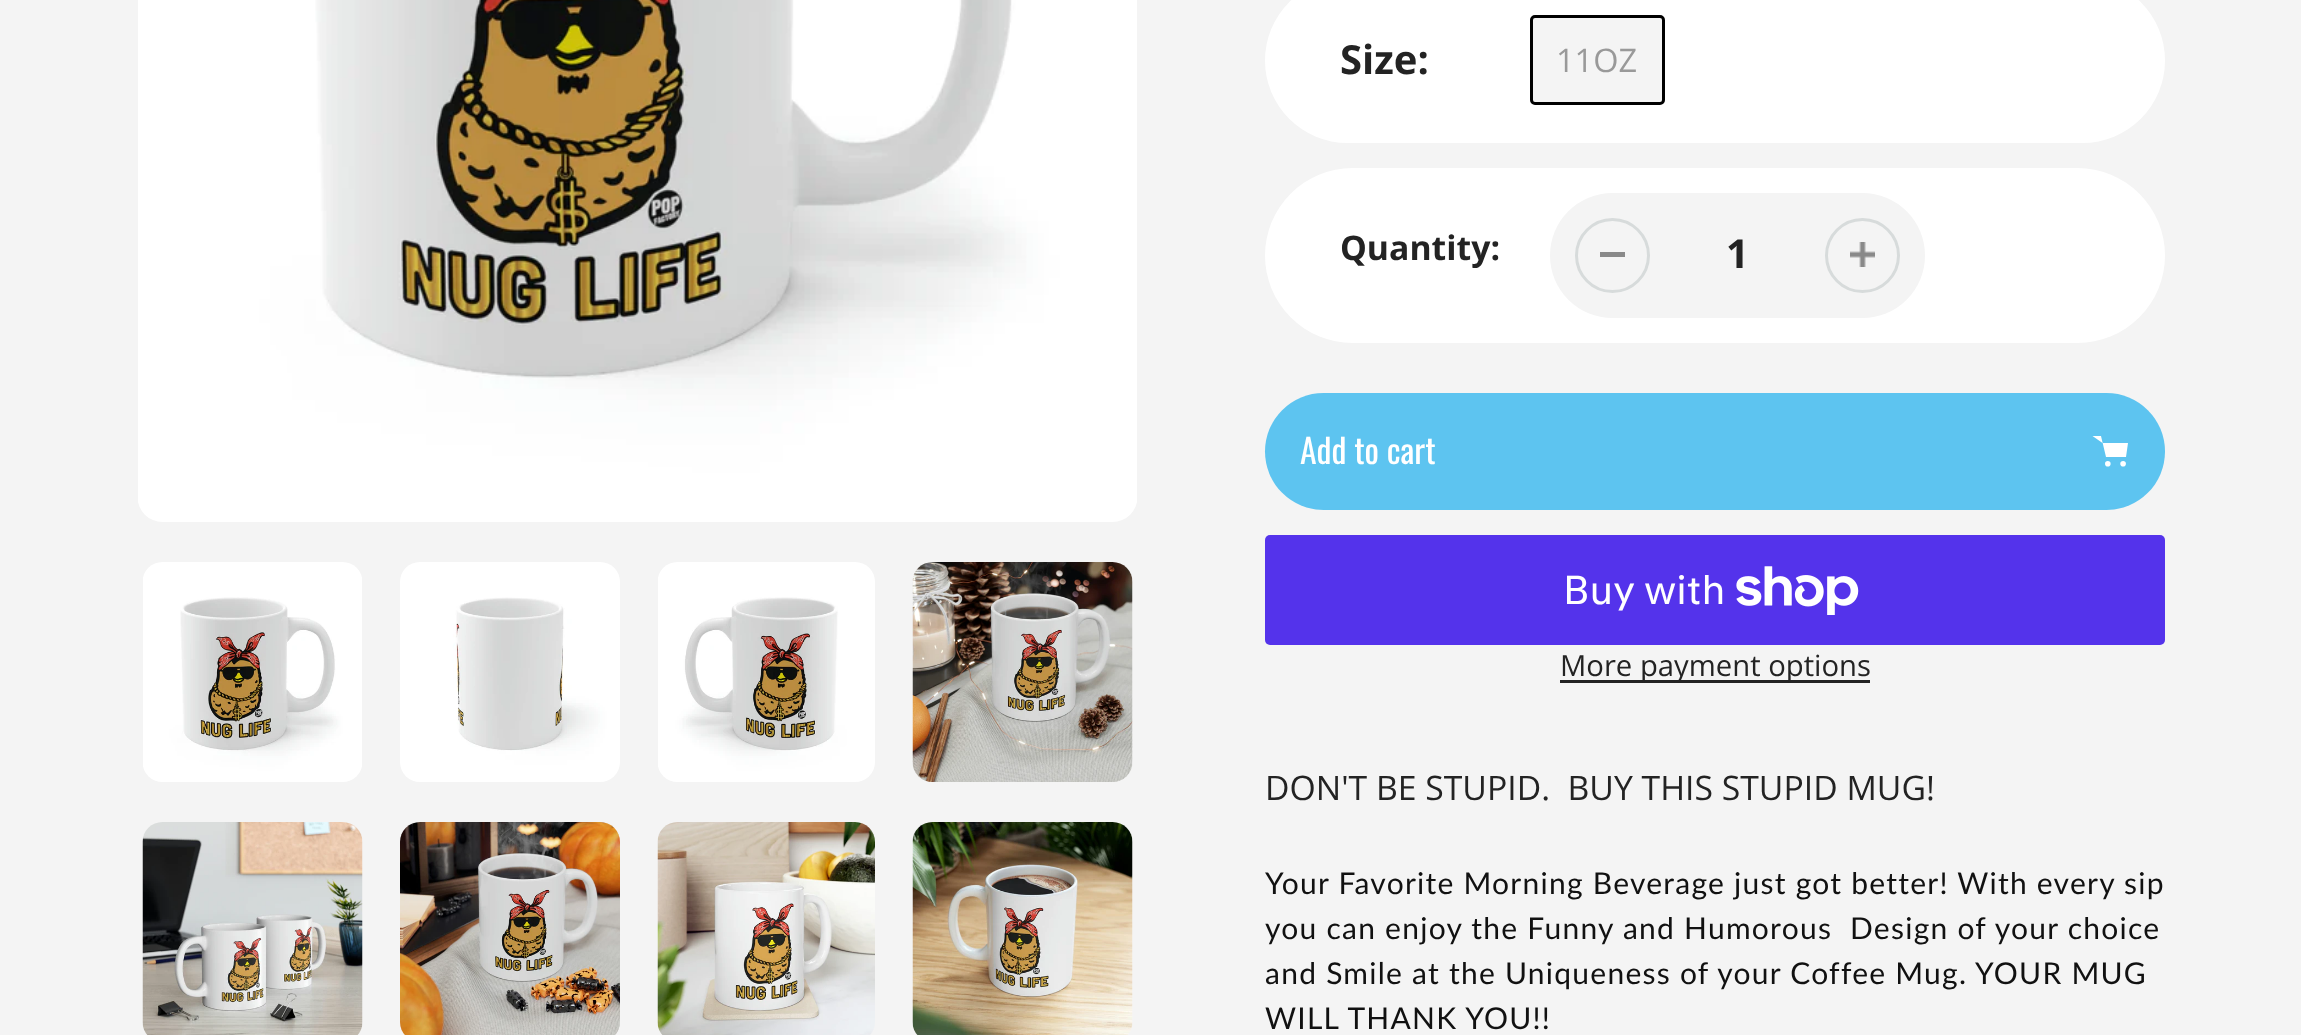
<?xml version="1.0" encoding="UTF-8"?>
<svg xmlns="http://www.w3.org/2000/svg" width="2301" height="1035">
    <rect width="100%" height="100%" fill="#F4F4F4"/>
    <image x="138" y="0" width="999" height="522" href="img_01.png"/>
    <image x="143" y="562" width="219" height="220" href="img_02.png"/>
    <image x="400" y="562" width="220" height="220" href="img_03.png"/>
    <image x="658" y="562" width="217" height="220" href="img_04.png"/>
    <image x="912" y="562" width="221" height="220" href="img_05.png"/>
    <image x="142" y="822" width="221" height="213" href="img_06.png"/>
    <image x="400" y="822" width="220" height="213" href="img_07.png"/>
    <image x="657" y="822" width="218" height="213" href="img_08.png"/>
    <image x="912" y="822" width="221" height="213" href="img_09.png"/>
    <rect x="1265" y="-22" width="900" height="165" rx="82.5" fill="#FFFFFF"/>
    <text x="1340" y="74" font-family="Open Sans" font-size="40" font-weight="700" fill="#232323">Size:</text>
    <rect x="1531.5" y="16.5" width="132" height="87" rx="3.5" fill="#F4F4F4" stroke="#000000" stroke-width="3"/>
    <text x="1556" y="72" font-family="Open Sans" font-size="32.5" fill="#999999">11OZ</text>
    <rect x="1265" y="168" width="900" height="175" rx="87.5" fill="#FFFFFF"/>
    <text x="1340" y="260" font-family="Open Sans" font-size="33.75" font-weight="700" fill="#232323">Quantity:</text>
    <rect x="1550" y="193" width="375" height="125" rx="62.5" fill="#F4F4F4"/>
    <rect x="1600" y="252" width="25" height="5" fill="#898989"/>
    <circle cx="1612.5" cy="255.5" r="36" fill="none" stroke="#D7DBDB" stroke-width="3"/>
    <text x="1726" y="268" font-family="Open Sans" font-size="40" font-weight="700" fill="#232323">1</text>
    <image x="1850" y="242" width="25" height="25" href="img_10.png"/>
    <circle cx="1862.5" cy="255.5" r="36" fill="none" stroke="#D7DBDB" stroke-width="3"/>
    <rect x="1265" y="393" width="900" height="117" rx="58.5" fill="#5DC4F0"/>
    <text x="1300" y="464" font-family="Oswald" font-size="33.75" fill="#FFFFFF">Add to cart</text>
    <circle cx="2107.8" cy="463.8" r="2.8" fill="#FFFFFF"/>
    <circle cx="2123.1" cy="463.8" r="2.8" fill="#FFFFFF"/>
    <path d="M 2102.5 443 H 2128 L 2126 457 H 2106 L 2101 436 H 2092.5" fill="#FFFFFF" fill-rule="evenodd"/>
    <rect x="1265" y="535" width="900" height="110" rx="5" fill="#5433EB"/>
    <text x="1563" y="604" font-family="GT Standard" font-size="40" fill="#FFFFFF">Buy with</text>
    <image x="1736" y="566" width="123" height="49" href="img_11.png"/>
    <rect x="1560" y="680" width="310" height="3" fill="#232323"/>
    <text x="1560" y="676" font-family="Open Sans" font-size="29.25" fill="#232323">More payment options</text>
    <text x="1265" y="800" font-family="Open Sans" font-size="33.75" fill="#232323" xml:space="preserve">DON'T BE STUPID.  BUY THIS STUPID MUG!</text>
    <text font-family="Lato" font-size="30" letter-spacing="1.25" fill="#111111" xml:space="preserve"><tspan x="1265" y="894">Your Favorite Morning Beverage just got better! With every sip</tspan><tspan x="1265" y="939">you can enjoy the Funny and Humorous  Design of your choice</tspan><tspan x="1265" y="984">and Smile at the Uniqueness of your Coffee Mug. YOUR MUG</tspan><tspan x="1265" y="1029">WILL THANK YOU!!</tspan></text>
</svg>
